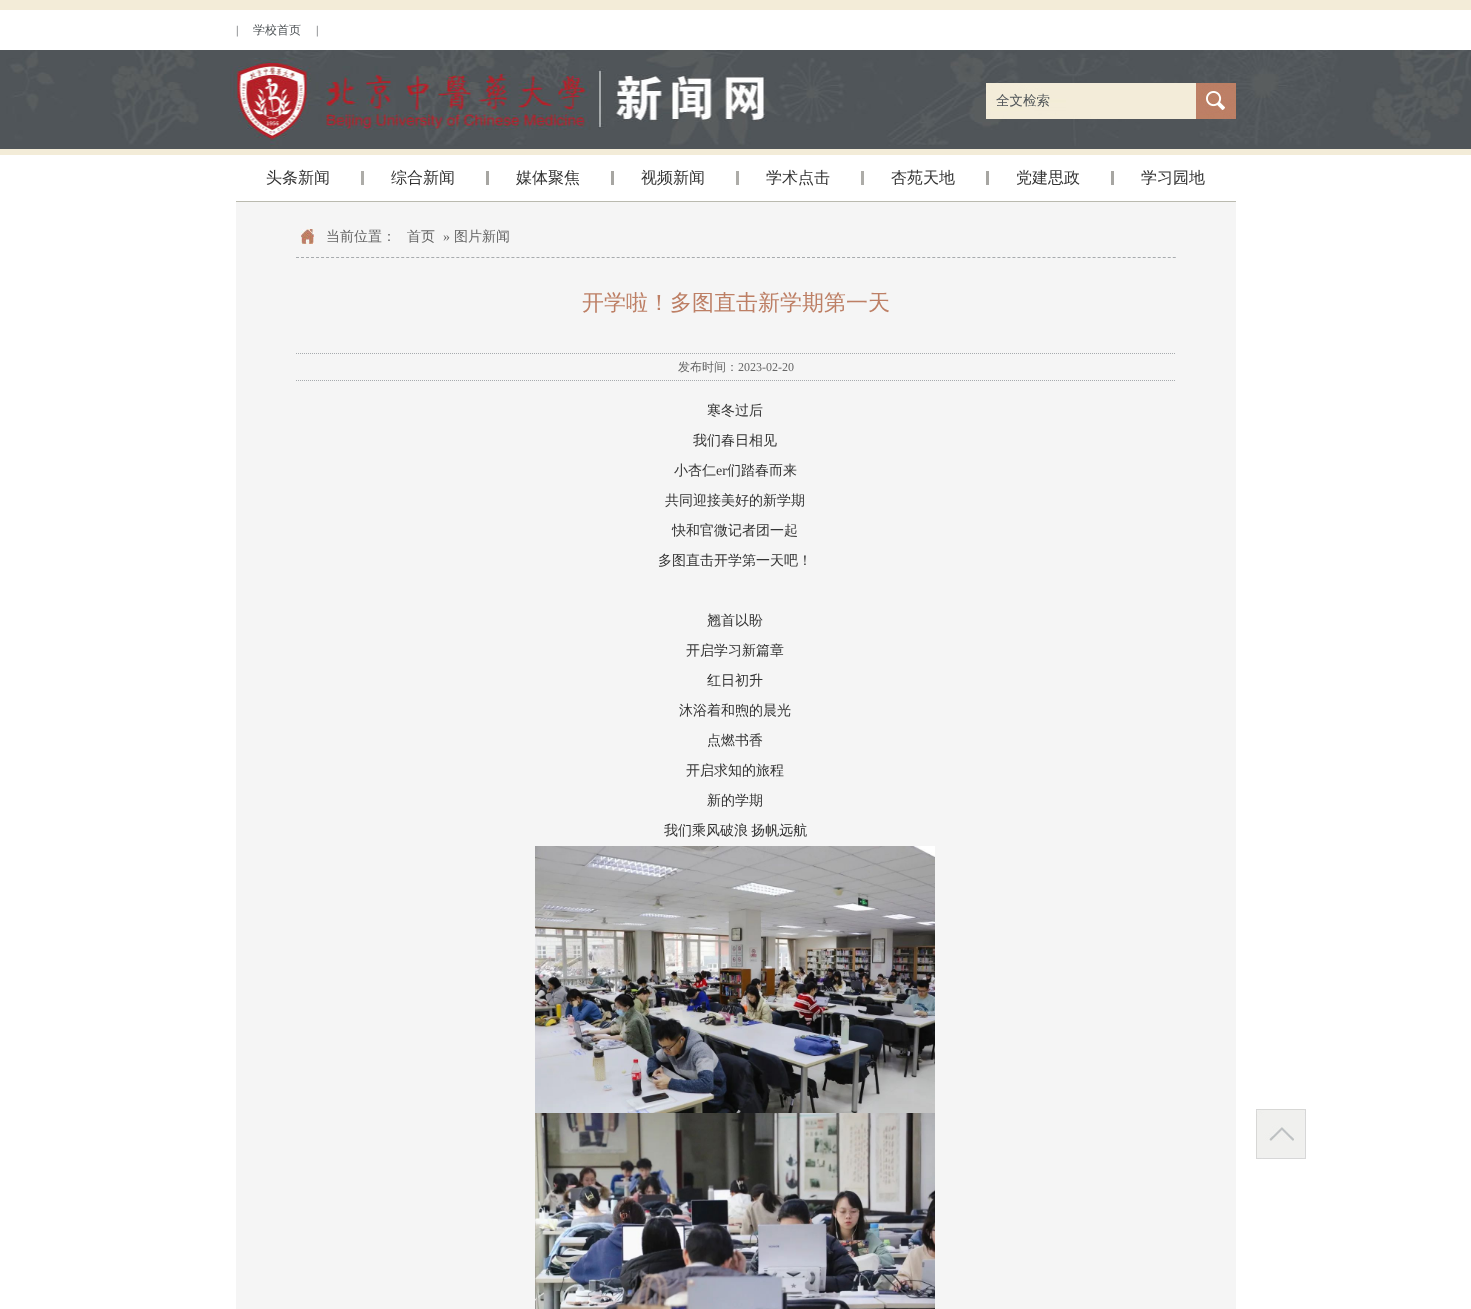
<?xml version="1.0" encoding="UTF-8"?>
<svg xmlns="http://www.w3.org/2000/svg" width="1471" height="1309">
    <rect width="100%" height="100%" fill="#FFFFFF"/>
    <rect x="0" y="0" width="1471" height="10" fill="#F3ECD8"/>
    <text x="236" y="34" font-family="Liberation Serif" font-size="12" fill="#505558">|</text>
    <text x="253" y="34" font-family="WenQuanYi Zen Hei" font-size="12" font-weight="500" fill="#505558">学校首页</text>
    <text x="316" y="34" font-family="Liberation Serif" font-size="12" fill="#505558">|</text>
    <image x="0" y="50" width="1471" height="99" href="img_01.png"/>
    <rect x="0" y="149" width="1471" height="6" fill="#F3ECD8"/>
    <image x="986" y="83" width="250" height="36" href="img_02.png"/>
    <text x="996" y="105" font-family="WenQuanYi Zen Hei" font-size="13.5" font-weight="500" fill="#505558">全文检索</text>
    <rect x="236" y="201" width="1000" height="1" fill="#BABAAF"/>
    <text x="266" y="183" font-family="WenQuanYi Zen Hei" font-size="16" font-weight="500" fill="#333333">头条新闻</text>
    <rect x="361" y="171" width="3" height="14" fill="#ADACA8"/>
    <text x="391" y="183" font-family="WenQuanYi Zen Hei" font-size="16" font-weight="500" fill="#333333">综合新闻</text>
    <rect x="486" y="171" width="3" height="14" fill="#A7A6A2"/>
    <text x="516" y="183" font-family="WenQuanYi Zen Hei" font-size="16" font-weight="500" fill="#333333">媒体聚焦</text>
    <rect x="611" y="171" width="3" height="14" fill="#A7A6A2"/>
    <text x="641" y="183" font-family="WenQuanYi Zen Hei" font-size="16" font-weight="500" fill="#333333">视频新闻</text>
    <rect x="736" y="171" width="3" height="14" fill="#ADACA8"/>
    <text x="766" y="183" font-family="WenQuanYi Zen Hei" font-size="16" font-weight="500" fill="#333333">学术点击</text>
    <rect x="861" y="171" width="3" height="14" fill="#ADACA8"/>
    <text x="891" y="183" font-family="WenQuanYi Zen Hei" font-size="16" font-weight="500" fill="#333333">杏苑天地</text>
    <rect x="986" y="171" width="3" height="14" fill="#A7A6A2"/>
    <text x="1016" y="183" font-family="WenQuanYi Zen Hei" font-size="16" font-weight="500" fill="#333333">党建思政</text>
    <rect x="1111" y="171" width="3" height="14" fill="#A7A6A2"/>
    <text x="1141" y="183" font-family="WenQuanYi Zen Hei" font-size="16" font-weight="500" fill="#333333">学习园地</text>
    <rect x="236" y="202" width="1000" height="1107" fill="#F5F5F5"/>
    <image x="301" y="229" width="13" height="15" href="img_03.png"/>
    <path d="M 296 257.5 H 1176" fill="none" stroke="#A7ABAE" stroke-dasharray="3 2.01"/>
    <text x="326" y="241" font-family="WenQuanYi Zen Hei" font-size="14" font-weight="500" fill="#666666">当前位置：</text>
    <text x="407" y="241" font-family="WenQuanYi Zen Hei" font-size="14" font-weight="500" fill="#666666">首页</text>
    <text x="443" y="241" font-family="Liberation Serif" font-size="14" fill="#666666">»</text>
    <text x="454" y="241" font-family="WenQuanYi Zen Hei" font-size="14" font-weight="500" fill="#666666">图片新闻</text>
    <text x="582" y="310" font-family="WenQuanYi Zen Hei" font-size="22" font-weight="500" fill="#BD7F65">开学啦！多图直击新学期第一天</text>
    <path d="M 296 353.5 H 1176" fill="none" stroke="#A7ABAE" stroke-dasharray="1 1"/>
    <path d="M 296 380.5 H 1176" fill="none" stroke="#A7ABAE" stroke-dasharray="1 1"/>
    <text x="678" y="371" font-family="WenQuanYi Zen Hei" font-size="12" font-weight="500" fill="#666666">发布时间：</text>
    <text x="738" y="371" font-family="Liberation Serif" font-size="12" fill="#666666">2023-02-20</text>
    <text x="707" y="415" font-family="WenQuanYi Zen Hei" font-size="14" font-weight="500" fill="#333333">寒冬过后</text>
    <text x="693" y="445" font-family="WenQuanYi Zen Hei" font-size="14" font-weight="500" fill="#333333">我们春日相见</text>
    <text x="674" y="475" font-family="WenQuanYi Zen Hei" font-size="14" font-weight="500" fill="#333333">小杏仁</text>
    <text x="716" y="475" font-family="Liberation Serif" font-size="14" fill="#333333">er</text>
    <text x="727" y="475" font-family="WenQuanYi Zen Hei" font-size="14" font-weight="500" fill="#333333">们踏春而来</text>
    <text x="665" y="505" font-family="WenQuanYi Zen Hei" font-size="14" font-weight="500" fill="#333333">共同迎接美好的新学期</text>
    <text x="672" y="535" font-family="WenQuanYi Zen Hei" font-size="14" font-weight="500" fill="#333333">快和官微记者团一起</text>
    <text x="658" y="565" font-family="WenQuanYi Zen Hei" font-size="14" font-weight="500" fill="#333333">多图直击开学第一天吧！</text>
    <text x="707" y="625" font-family="WenQuanYi Zen Hei" font-size="14" font-weight="500" fill="#333333">翘首以盼</text>
    <text x="686" y="655" font-family="WenQuanYi Zen Hei" font-size="14" font-weight="500" fill="#333333">开启学习新篇章</text>
    <text x="707" y="685" font-family="WenQuanYi Zen Hei" font-size="14" font-weight="500" fill="#333333">红日初升</text>
    <text x="679" y="715" font-family="WenQuanYi Zen Hei" font-size="14" font-weight="500" fill="#333333">沐浴着和煦的晨光</text>
    <text x="707" y="745" font-family="WenQuanYi Zen Hei" font-size="14" font-weight="500" fill="#333333">点燃书香</text>
    <text x="686" y="775" font-family="WenQuanYi Zen Hei" font-size="14" font-weight="500" fill="#333333">开启求知的旅程</text>
    <text x="707" y="805" font-family="WenQuanYi Zen Hei" font-size="14" font-weight="500" fill="#333333">新的学期</text>
    <text x="664" y="835" word-spacing="-1" font-family="WenQuanYi Zen Hei" font-size="14" font-weight="500" fill="#333333">我们乘风破浪 扬帆远航</text>
    <image x="535" y="846" width="400" height="267" href="img_04.png"/>
    <image x="535" y="1113" width="400" height="196" href="img_05.png"/>
    <image x="1256" y="1109" width="50" height="50" href="img_06.png"/>
</svg>
